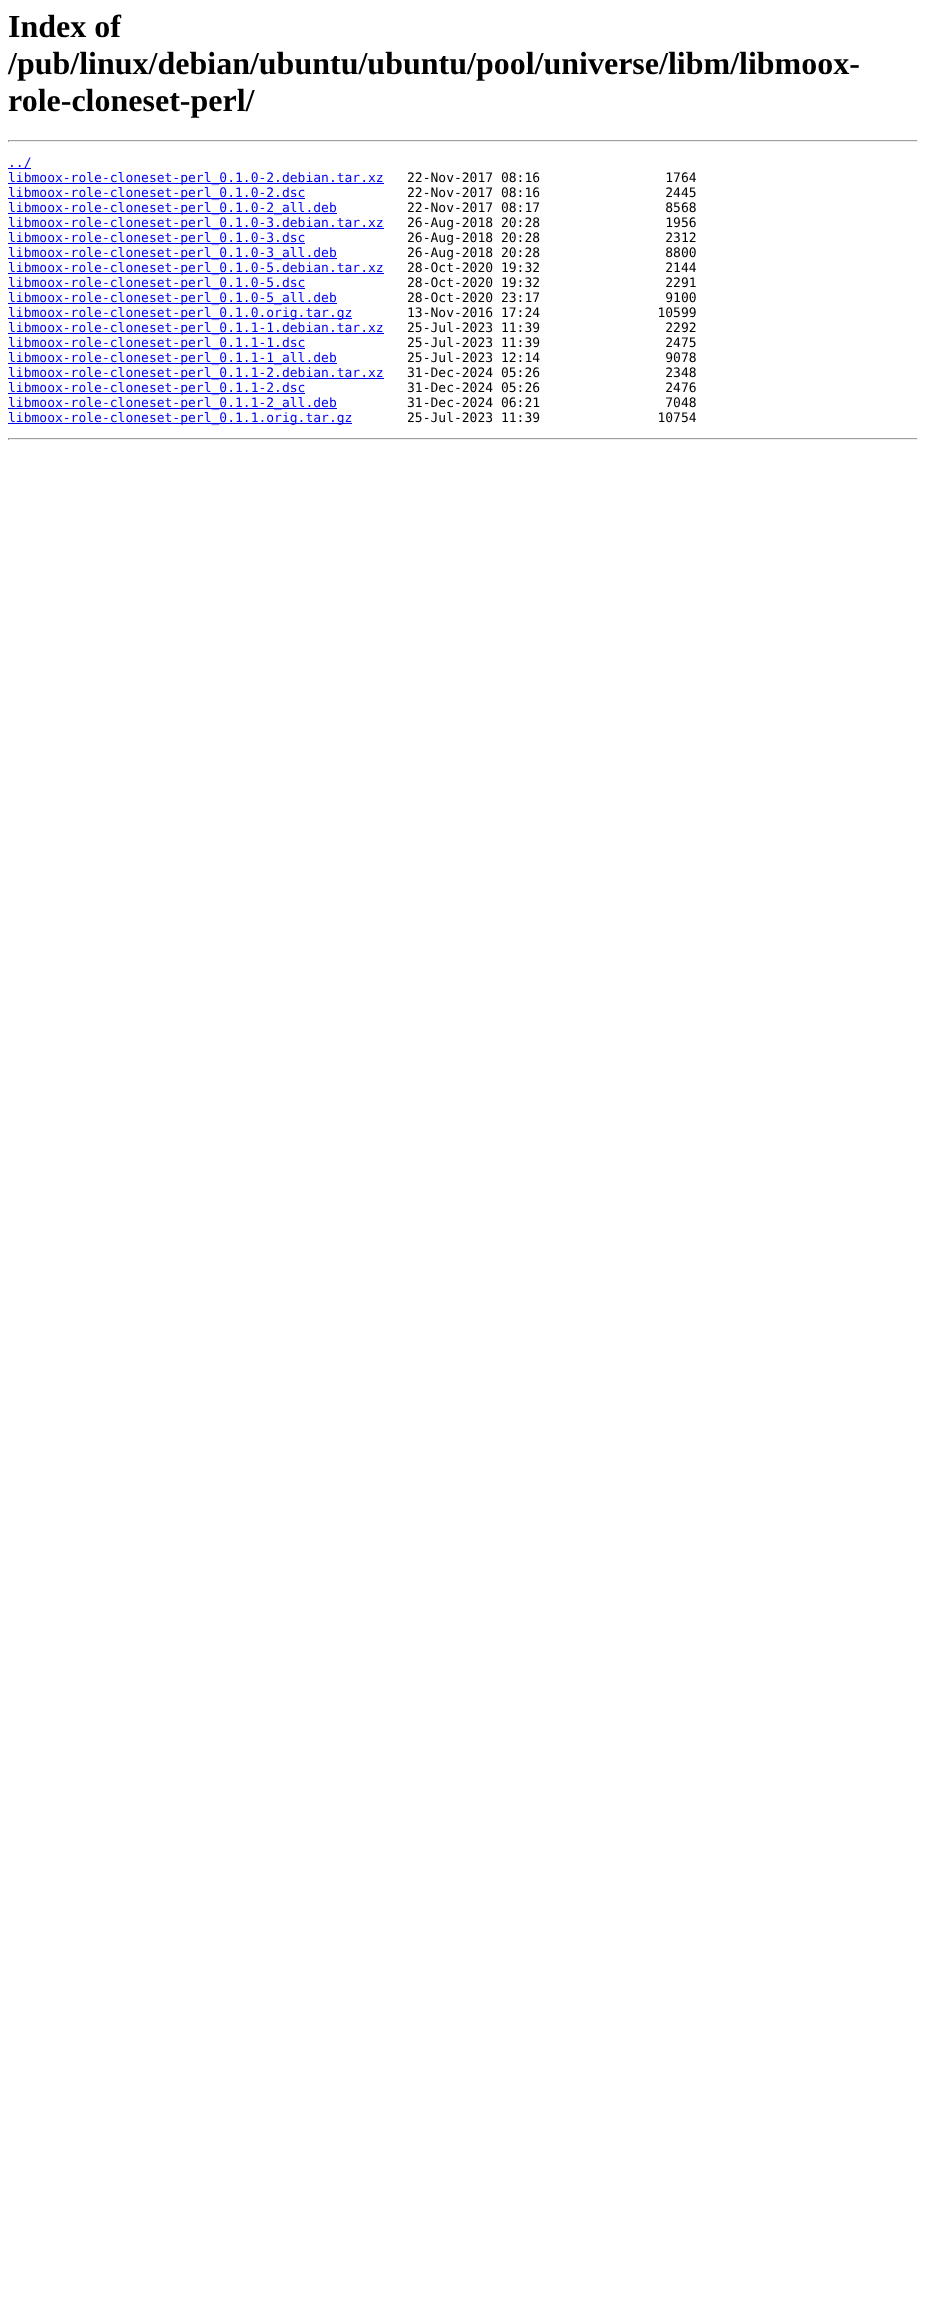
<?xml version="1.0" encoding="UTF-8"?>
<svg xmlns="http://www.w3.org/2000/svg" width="926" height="2322">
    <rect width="100%" height="100%" fill="#FFFFFF"/>
    <text font-family="Liberation Serif" font-size="32" font-weight="700" fill="#000000">
        <tspan x="8" y="37">Index of</tspan>
        <tspan x="8" y="74">/pub/linux/debian/ubuntu/ubuntu/pool/universe/libm/libmoox-</tspan>
        <tspan x="8" y="111">role-cloneset-perl/</tspan>
    </text>
    <rect x="8" y="140" width="910" height="1" fill="#9F9F9F"/>
    <rect x="917" y="140" width="1" height="2" fill="#EEEEEE"/>
    <rect x="8" y="141" width="910" height="1" fill="#EEEEEE"/>
    <rect x="8" y="140" width="1" height="2" fill="#9F9F9F"/>
    <rect x="8" y="168" width="23" height="1" fill="#0000EE"/>
    <text x="8" y="167" font-family="DejaVu Sans Mono" font-size="13" fill="#0000EE">../</text>
    <rect x="8" y="183" width="376" height="1" fill="#0000EE"/>
    <text x="8" y="182" font-family="DejaVu Sans Mono" font-size="13" fill="#0000EE">libmoox-role-cloneset-perl_0.1.0-2.debian.tar.xz</text>
    <text x="407" y="182" font-family="DejaVu Sans Mono" font-size="13" fill="#000000" xml:space="preserve">22-Nov-2017 08:16                1764</text>
    <rect x="8" y="198" width="297" height="1" fill="#0000EE"/>
    <text x="8" y="197" font-family="DejaVu Sans Mono" font-size="13" fill="#0000EE">libmoox-role-cloneset-perl_0.1.0-2.dsc</text>
    <text x="407" y="197" font-family="DejaVu Sans Mono" font-size="13" fill="#000000" xml:space="preserve">22-Nov-2017 08:16                2445</text>
    <rect x="8" y="213" width="329" height="1" fill="#0000EE"/>
    <text x="8" y="212" font-family="DejaVu Sans Mono" font-size="13" fill="#0000EE">libmoox-role-cloneset-perl_0.1.0-2_all.deb</text>
    <text x="407" y="212" font-family="DejaVu Sans Mono" font-size="13" fill="#000000" xml:space="preserve">22-Nov-2017 08:17                8568</text>
    <rect x="8" y="228" width="376" height="1" fill="#0000EE"/>
    <text x="8" y="227" font-family="DejaVu Sans Mono" font-size="13" fill="#0000EE">libmoox-role-cloneset-perl_0.1.0-3.debian.tar.xz</text>
    <text x="407" y="227" font-family="DejaVu Sans Mono" font-size="13" fill="#000000" xml:space="preserve">26-Aug-2018 20:28                1956</text>
    <rect x="8" y="243" width="297" height="1" fill="#0000EE"/>
    <text x="8" y="242" font-family="DejaVu Sans Mono" font-size="13" fill="#0000EE">libmoox-role-cloneset-perl_0.1.0-3.dsc</text>
    <text x="407" y="242" font-family="DejaVu Sans Mono" font-size="13" fill="#000000" xml:space="preserve">26-Aug-2018 20:28                2312</text>
    <rect x="8" y="258" width="329" height="1" fill="#0000EE"/>
    <text x="8" y="257" font-family="DejaVu Sans Mono" font-size="13" fill="#0000EE">libmoox-role-cloneset-perl_0.1.0-3_all.deb</text>
    <text x="407" y="257" font-family="DejaVu Sans Mono" font-size="13" fill="#000000" xml:space="preserve">26-Aug-2018 20:28                8800</text>
    <rect x="8" y="273" width="376" height="1" fill="#0000EE"/>
    <text x="8" y="272" font-family="DejaVu Sans Mono" font-size="13" fill="#0000EE">libmoox-role-cloneset-perl_0.1.0-5.debian.tar.xz</text>
    <text x="407" y="272" font-family="DejaVu Sans Mono" font-size="13" fill="#000000" xml:space="preserve">28-Oct-2020 19:32                2144</text>
    <rect x="8" y="288" width="297" height="1" fill="#0000EE"/>
    <text x="8" y="287" font-family="DejaVu Sans Mono" font-size="13" fill="#0000EE">libmoox-role-cloneset-perl_0.1.0-5.dsc</text>
    <text x="407" y="287" font-family="DejaVu Sans Mono" font-size="13" fill="#000000" xml:space="preserve">28-Oct-2020 19:32                2291</text>
    <rect x="8" y="303" width="329" height="1" fill="#0000EE"/>
    <text x="8" y="302" font-family="DejaVu Sans Mono" font-size="13" fill="#0000EE">libmoox-role-cloneset-perl_0.1.0-5_all.deb</text>
    <text x="407" y="302" font-family="DejaVu Sans Mono" font-size="13" fill="#000000" xml:space="preserve">28-Oct-2020 23:17                9100</text>
    <rect x="8" y="318" width="344" height="1" fill="#0000EE"/>
    <text x="8" y="317" font-family="DejaVu Sans Mono" font-size="13" fill="#0000EE">libmoox-role-cloneset-perl_0.1.0.orig.tar.gz</text>
    <text x="407" y="317" font-family="DejaVu Sans Mono" font-size="13" fill="#000000" xml:space="preserve">13-Nov-2016 17:24               10599</text>
    <rect x="8" y="333" width="376" height="1" fill="#0000EE"/>
    <text x="8" y="332" font-family="DejaVu Sans Mono" font-size="13" fill="#0000EE">libmoox-role-cloneset-perl_0.1.1-1.debian.tar.xz</text>
    <text x="407" y="332" font-family="DejaVu Sans Mono" font-size="13" fill="#000000" xml:space="preserve">25-Jul-2023 11:39                2292</text>
    <rect x="8" y="348" width="297" height="1" fill="#0000EE"/>
    <text x="8" y="347" font-family="DejaVu Sans Mono" font-size="13" fill="#0000EE">libmoox-role-cloneset-perl_0.1.1-1.dsc</text>
    <text x="407" y="347" font-family="DejaVu Sans Mono" font-size="13" fill="#000000" xml:space="preserve">25-Jul-2023 11:39                2475</text>
    <rect x="8" y="363" width="329" height="1" fill="#0000EE"/>
    <text x="8" y="362" font-family="DejaVu Sans Mono" font-size="13" fill="#0000EE">libmoox-role-cloneset-perl_0.1.1-1_all.deb</text>
    <text x="407" y="362" font-family="DejaVu Sans Mono" font-size="13" fill="#000000" xml:space="preserve">25-Jul-2023 12:14                9078</text>
    <rect x="8" y="378" width="376" height="1" fill="#0000EE"/>
    <text x="8" y="377" font-family="DejaVu Sans Mono" font-size="13" fill="#0000EE">libmoox-role-cloneset-perl_0.1.1-2.debian.tar.xz</text>
    <text x="407" y="377" font-family="DejaVu Sans Mono" font-size="13" fill="#000000" xml:space="preserve">31-Dec-2024 05:26                2348</text>
    <rect x="8" y="393" width="297" height="1" fill="#0000EE"/>
    <text x="8" y="392" font-family="DejaVu Sans Mono" font-size="13" fill="#0000EE">libmoox-role-cloneset-perl_0.1.1-2.dsc</text>
    <text x="407" y="392" font-family="DejaVu Sans Mono" font-size="13" fill="#000000" xml:space="preserve">31-Dec-2024 05:26                2476</text>
    <rect x="8" y="408" width="329" height="1" fill="#0000EE"/>
    <text x="8" y="407" font-family="DejaVu Sans Mono" font-size="13" fill="#0000EE">libmoox-role-cloneset-perl_0.1.1-2_all.deb</text>
    <text x="407" y="407" font-family="DejaVu Sans Mono" font-size="13" fill="#000000" xml:space="preserve">31-Dec-2024 06:21                7048</text>
    <rect x="8" y="423" width="344" height="1" fill="#0000EE"/>
    <text x="8" y="422" font-family="DejaVu Sans Mono" font-size="13" fill="#0000EE">libmoox-role-cloneset-perl_0.1.1.orig.tar.gz</text>
    <text x="407" y="422" font-family="DejaVu Sans Mono" font-size="13" fill="#000000" xml:space="preserve">25-Jul-2023 11:39               10754</text>
    <rect x="8" y="438" width="910" height="1" fill="#9F9F9F"/>
    <rect x="917" y="438" width="1" height="2" fill="#EEEEEE"/>
    <rect x="8" y="439" width="910" height="1" fill="#EEEEEE"/>
    <rect x="8" y="438" width="1" height="2" fill="#9F9F9F"/>
</svg>
